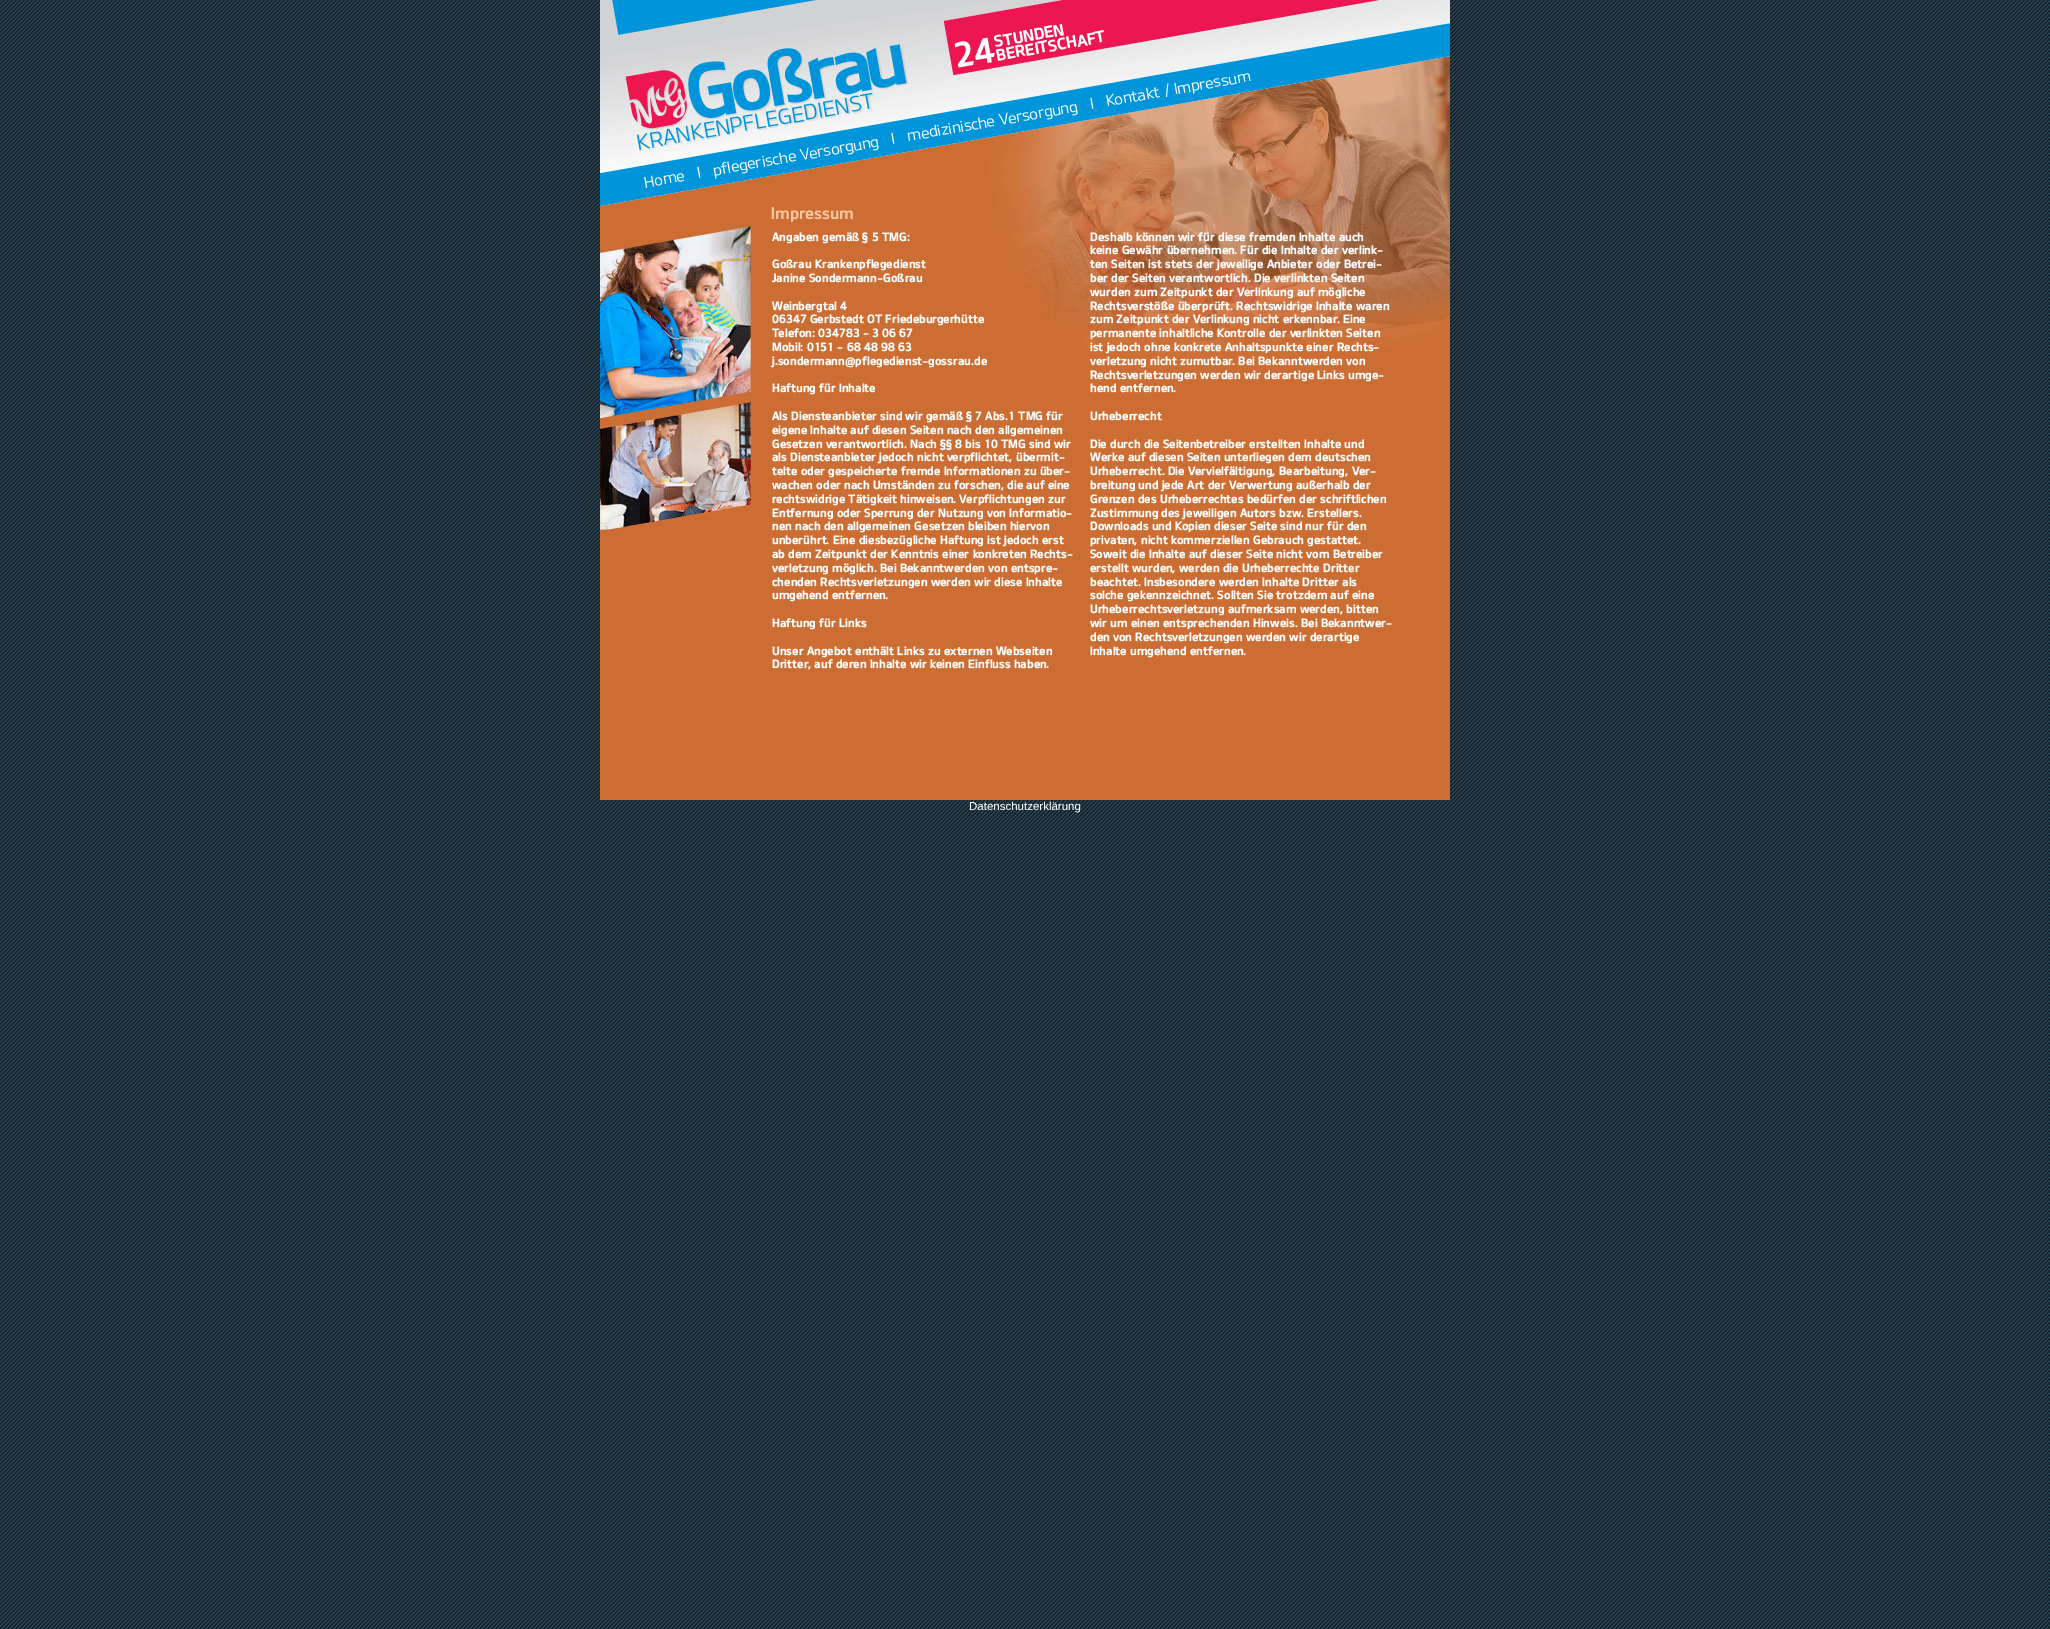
<?xml version="1.0" encoding="UTF-8"?>
<svg xmlns="http://www.w3.org/2000/svg" width="2050" height="1629">
    <rect width="100%" height="100%" fill="#FFFFFF"/>
    <image x="0" y="0" width="2050" height="1629" href="img_01.png"/>
    <image x="600" y="0" width="850" height="206" href="img_02.png"/>
    <image x="600" y="206" width="850" height="20" href="img_03.png"/>
    <image x="600" y="226" width="151" height="574" href="img_04.png"/>
    <image x="751" y="226" width="21" height="574" href="img_05.png"/>
    <image x="772" y="226" width="304" height="574" href="img_06.png"/>
    <image x="1076" y="226" width="13" height="574" href="img_07.png"/>
    <image x="1089" y="226" width="304" height="574" href="img_08.png"/>
    <image x="1393" y="226" width="57" height="574" href="img_09.png"/>
    <text x="969" y="810" font-family="Liberation Sans" font-size="11.5" fill="#FFFFFF">Datenschutzerklärung</text>
</svg>
